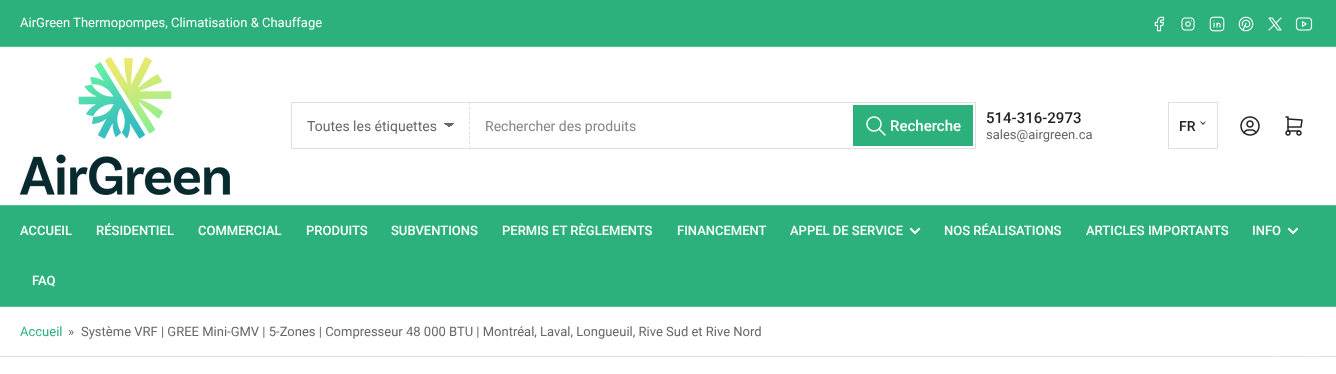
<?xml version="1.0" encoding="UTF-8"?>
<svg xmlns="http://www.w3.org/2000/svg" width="1336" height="374">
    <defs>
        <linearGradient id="g1" gradientUnits="userSpaceOnUse" x1="449" y1="123" x2="454" y2="128"><stop offset="0.5" stop-color="#676767"/><stop offset="0.5" stop-color="#FFFFFF"/></linearGradient>
        <linearGradient id="g2" gradientUnits="userSpaceOnUse" x1="444" y1="128" x2="449" y2="123"><stop offset="0.5" stop-color="#FFFFFF"/><stop offset="0.5" stop-color="#676767"/></linearGradient>
    </defs>
    <rect width="100%" height="100%" fill="#FFFFFF"/>
    <rect x="0" y="0" width="1336" height="46" fill="#2CB07C"/>
    <rect x="0" y="46" width="1336" height="1" fill="#56C096"/>
    <text x="20" y="27" font-family="Roboto" font-size="13" fill="#FFFFFF">AirGreen Thermopompes, Climatisation &amp; Chauffage</text>
    <image x="1154" y="16" width="11" height="16" href="img_01.png"/>
    <image x="1181" y="17" width="14" height="14" href="img_02.png"/>
    <image x="1209" y="16" width="16" height="16" href="img_03.png"/>
    <image x="1238" y="16" width="16" height="16" href="img_04.png"/>
    <image x="1268" y="17" width="14" height="14" href="img_05.png"/>
    <image x="1295" y="17" width="18" height="14" href="img_06.png"/>
    <image x="20" y="57" width="210" height="138" href="img_07.png"/>
    <rect x="449" y="123" width="5" height="4" fill="url(#g1)"/>
    <rect x="444" y="123" width="5" height="4" fill="url(#g2)"/>
    <rect x="291" y="102" width="685" height="1" fill="#DFDFDF"/>
    <path d="M 469.5 102 V 149" fill="none" stroke="#DFDFDF" stroke-dasharray="3 1.89"/>
    <rect x="291" y="148" width="179" height="1" fill="#DFDFDF"/>
    <rect x="291" y="102" width="1" height="47" fill="#DFDFDF"/>
    <text x="307" y="131" font-family="Roboto" font-size="14" fill="#676767">Toutes les étiquettes</text>
    <rect x="975" y="102" width="1" height="47" fill="#DFDFDF"/>
    <rect x="470" y="148" width="506" height="1" fill="#DFDFDF"/>
    <text x="485" y="131" font-family="Roboto" font-size="14" fill="#858585">Rechercher des produits</text>
    <rect x="853.5" y="105.5" width="119" height="40" fill="none" stroke="#2CB07C"/>
    <rect x="854" y="106" width="118" height="39" fill="#2CB07C"/>
    <image x="866" y="116" width="20" height="20" href="img_08.png"/>
    <text x="890" y="131" font-family="Roboto" font-size="15" font-weight="500" fill="#FFFFFF">Recherche</text>
    <text x="986" y="123" font-family="Roboto" font-size="15" font-weight="500" fill="#232323">514-316-2973</text>
    <text x="986" y="139" font-family="Roboto" font-size="13" fill="#676767">sales@airgreen.ca</text>
    <rect x="1168.5" y="102.5" width="49" height="46" fill="none" stroke="#DFDFDF"/>
    <text x="1179" y="131" font-family="Roboto" font-size="14" font-weight="500" fill="#232323">FR</text>
    <path d="M 1201 121.5 L 1202.5 123 C 1203 123.5 1204 125 1202.5 124.5 L 1200.5 122 C 1200 121.5 1200.5 121 1201 121.5 Z" fill="#232323"/>
    <path d="M 1203 123.5 L 1204.5 122 C 1205 121.5 1206.5 121 1205.5 122 L 1203.5 124.5 C 1203 124.5 1202.5 124 1203 123.5 Z" fill="#232323"/>
    <image x="1240" y="116" width="20" height="20" href="img_09.png"/>
    <image x="1285" y="116" width="18" height="20" href="img_10.png"/>
    <rect x="0" y="206" width="1336" height="100" fill="#2CB07C"/>
    <rect x="0" y="205" width="1336" height="1" fill="#56C096"/>
    <rect x="0" y="306" width="1336" height="1" fill="#56C096"/>
    <text x="20" y="235" font-family="Roboto" font-size="13" font-weight="500" fill="#FFFFFF">ACCUEIL</text>
    <text x="96" y="235" font-family="Roboto" font-size="13" font-weight="500" fill="#FFFFFF">RÉSIDENTIEL</text>
    <text x="198" y="235" font-family="Roboto" font-size="13" font-weight="500" fill="#FFFFFF">COMMERCIAL</text>
    <text x="306" y="235" font-family="Roboto" font-size="13" font-weight="500" fill="#FFFFFF">PRODUITS</text>
    <text x="391" y="235" font-family="Roboto" font-size="13" font-weight="500" fill="#FFFFFF">SUBVENTIONS</text>
    <text x="502" y="235" font-family="Roboto" font-size="13" font-weight="500" fill="#FFFFFF">PERMIS ET RÈGLEMENTS</text>
    <text x="677" y="235" font-family="Roboto" font-size="13" font-weight="500" fill="#FFFFFF">FINANCEMENT</text>
    <text x="790" y="235" font-family="Roboto" font-size="13" font-weight="500" fill="#FFFFFF">APPEL DE SERVICE</text>
    <path d="M 919 229 L 915 233 L 911 229" fill="none" stroke="#FFFFFF" stroke-width="2" stroke-linecap="square"/>
    <text x="944" y="235" font-family="Roboto" font-size="13" font-weight="500" fill="#FFFFFF">NOS RÉALISATIONS</text>
    <text x="1086" y="235" font-family="Roboto" font-size="13" font-weight="500" fill="#FFFFFF">ARTICLES IMPORTANTS</text>
    <text x="1252" y="235" font-family="Roboto" font-size="13" font-weight="500" fill="#FFFFFF">INFO</text>
    <path d="M 1297 229 L 1293 233 L 1289 229" fill="none" stroke="#FFFFFF" stroke-width="2" stroke-linecap="square"/>
    <text x="32" y="285" font-family="Roboto" font-size="13" font-weight="500" fill="#FFFFFF">FAQ</text>
    <rect x="0" y="356" width="1336" height="1" fill="#DFDFDF"/>
    <text x="20" y="336" font-family="Roboto" font-size="13" fill="#2CB07C">Accueil</text>
    <text x="68" y="336" font-family="Roboto" font-size="13" fill="#676767">»</text>
    <text x="81" y="336" font-family="Roboto" font-size="13" fill="#676767">Système VRF | GREE Mini-GMV | 5-Zones | Compresseur 48 000 BTU | Montréal, Laval, Longueuil, Rive Sud et Rive Nord</text>
    <path d="M 1272 352 C 1272 358 1275 356 1281 356 H 1307 C 1313 356 1316 358 1316 352 C 1316 353 1315 354 1314 354 H 1274 C 1273 354 1272 353 1272 352 Z" fill="#FFFFFF"/>
</svg>
